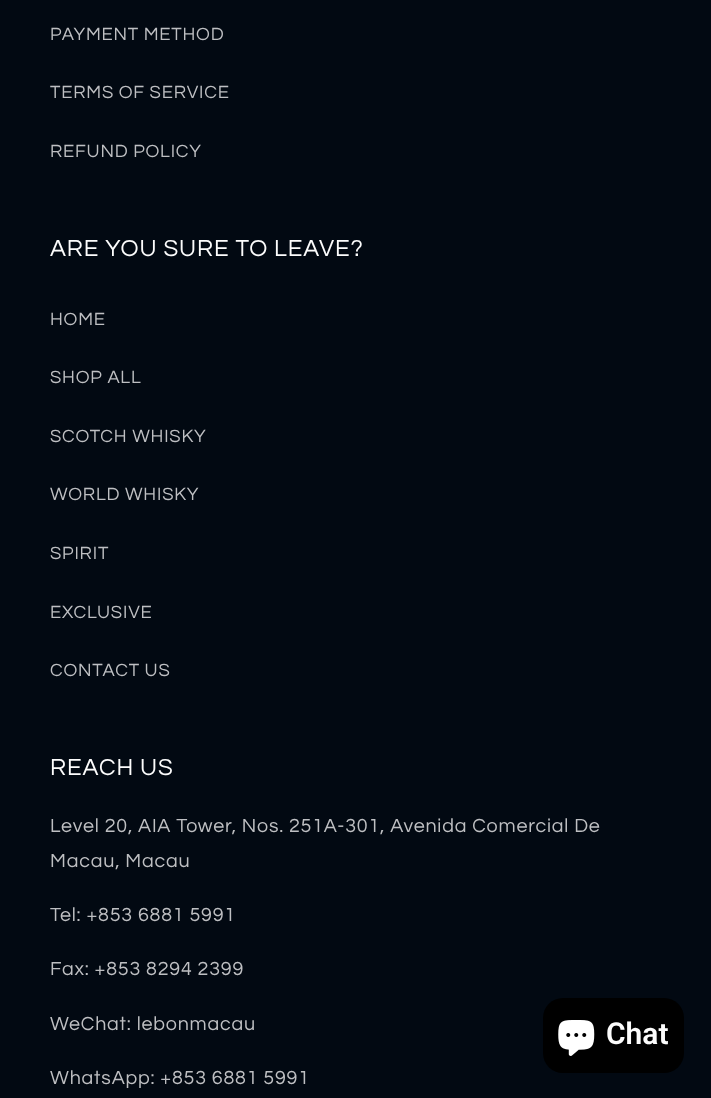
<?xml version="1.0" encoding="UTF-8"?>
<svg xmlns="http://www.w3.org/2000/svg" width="711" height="1098">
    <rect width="100%" height="100%" fill="#020912"/>
    <text x="50" y="40" font-family="Questrial" font-size="18.4" letter-spacing="0.8" fill="#BEBFC2">PAYMENT METHOD</text>
    <text x="50" y="98" font-family="Questrial" font-size="18.4" letter-spacing="0.8" fill="#BEBFC2">TERMS OF SERVICE</text>
    <text x="50" y="157" font-family="Questrial" font-size="18.4" letter-spacing="0.8" fill="#BEBFC2">REFUND POLICY</text>
    <text x="50" y="256" font-family="Questrial" font-size="24" letter-spacing="0.9" fill="#FCFCFC">ARE YOU SURE TO LEAVE?</text>
    <text x="50" y="325" font-family="Questrial" font-size="18.4" letter-spacing="0.8" fill="#BEBFC2">HOME</text>
    <text x="50" y="383" font-family="Questrial" font-size="18.4" letter-spacing="0.8" fill="#BEBFC2">SHOP ALL</text>
    <text x="50" y="442" font-family="Questrial" font-size="18.4" letter-spacing="0.8" fill="#BEBFC2">SCOTCH WHISKY</text>
    <text x="50" y="500" font-family="Questrial" font-size="18.4" letter-spacing="0.8" fill="#BEBFC2">WORLD WHISKY</text>
    <text x="50" y="559" font-family="Questrial" font-size="18.4" letter-spacing="0.8" fill="#BEBFC2">SPIRIT</text>
    <text x="50" y="618" font-family="Questrial" font-size="18.4" letter-spacing="0.8" fill="#BEBFC2">EXCLUSIVE</text>
    <text x="50" y="676" font-family="Questrial" font-size="18.4" letter-spacing="0.8" fill="#BEBFC2">CONTACT US</text>
    <text x="50" y="775" font-family="Questrial" font-size="24" letter-spacing="0.9" fill="#FCFCFC">REACH US</text>
    <text font-family="Questrial" font-size="19.7" letter-spacing="0.8" fill="#BEBFC2">
        <tspan x="50" y="832">Level 20, AIA Tower, Nos. 251A-301, Avenida Comercial De</tspan>
        <tspan x="50" y="867">Macau, Macau</tspan>
    </text>
    <text x="50" y="921" font-family="Questrial" font-size="19.7" letter-spacing="0.8" fill="#BEBFC2">Tel: +853 6881 5991</text>
    <text x="50" y="975" font-family="Questrial" font-size="19.7" letter-spacing="0.8" fill="#BEBFC2">Fax: +853 8294 2399</text>
    <text x="50" y="1030" font-family="Questrial" font-size="19.7" letter-spacing="0.8" fill="#BEBFC2">WeChat: lebonmacau</text>
    <text x="50" y="1084" font-family="Questrial" font-size="19.7" letter-spacing="0.8" fill="#BEBFC2">WhatsApp: +853 6881 5991</text>
    <rect x="543" y="998" width="141" height="75" rx="20" fill="#000000"/>
    <image x="558" y="1020" width="37" height="36" href="img_01.png"/>
    <text x="606" y="1044" font-family="Roboto" font-size="30" font-weight="600" fill="#FCFCFC">Chat</text>
</svg>
